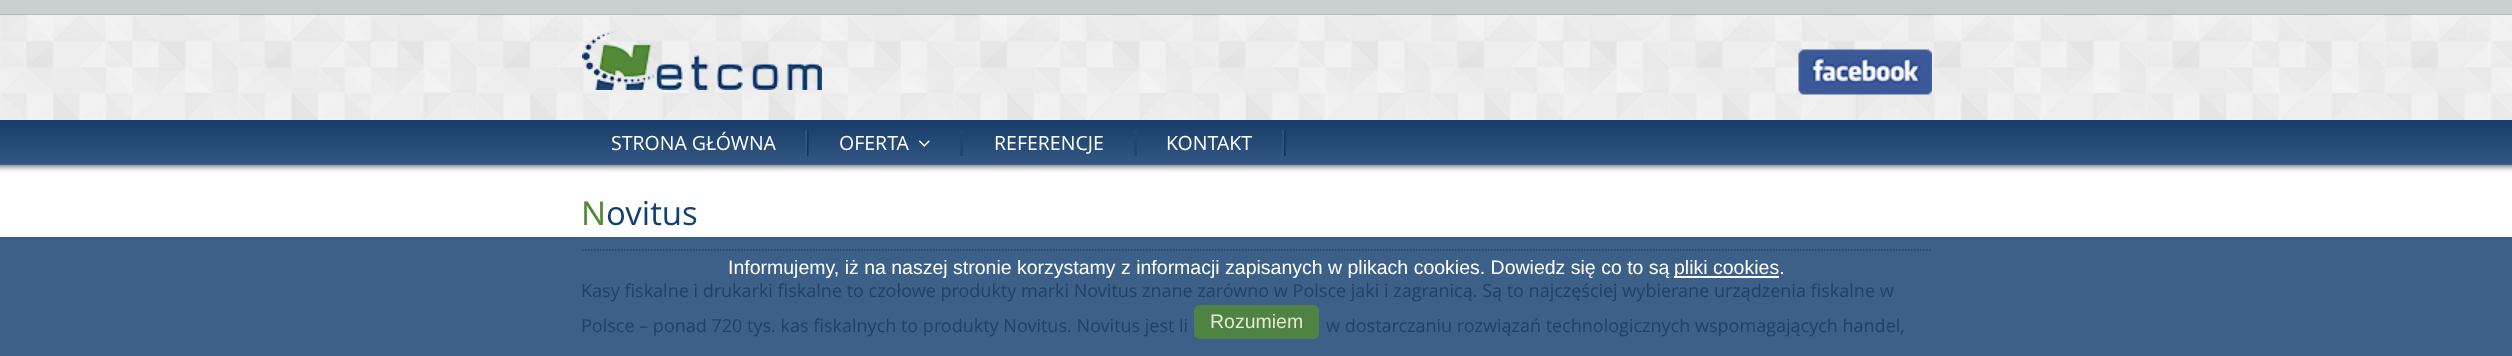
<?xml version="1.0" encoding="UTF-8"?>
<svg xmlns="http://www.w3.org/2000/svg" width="2512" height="356">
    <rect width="100%" height="100%" fill="#FFFFFF"/>
    <rect x="0" y="237" width="2512" height="119" fill="#3D6089"/>
    <rect x="0" y="0" width="2512" height="14" fill="#C8D0D2"/>
    <rect x="0" y="14" width="2512" height="2" fill="#B3BABC"/>
    <image x="0" y="15" width="2512" height="105" href="img_01.png"/>
    <image x="582" y="30" width="240" height="60" href="img_02.png"/>
    <image x="1798" y="49" width="134" height="46" href="img_03.png"/>
    <image x="0" y="120" width="2512" height="52" href="img_04.png"/>
    <text x="611" y="150" font-family="Open Sans" font-size="19.5" fill="#FFFFFF">STRONA GŁÓWNA</text>
    <image x="805" y="130" width="4" height="26" href="img_05.png"/>
    <text x="839" y="150" font-family="Open Sans" font-size="19.5" fill="#FFFFFF">OFERTA</text>
    <image x="918" y="140" width="12" height="7" href="img_06.png"/>
    <rect x="960" y="130" width="3" height="26" fill="#23456D"/>
    <text x="994" y="150" font-family="Open Sans" font-size="19.5" fill="#FFFFFF">REFERENCJE</text>
    <rect x="1134" y="130" width="3" height="26" fill="#24456D"/>
    <text x="1166" y="150" font-family="Open Sans" font-size="19.5" fill="#FFFFFF">KONTAKT</text>
    <image x="1282" y="130" width="4" height="26" href="img_05.png"/>
    <text x="581" y="225" font-family="Noto Sans" font-size="33" fill="#528A38">N</text>
    <text x="606" y="225" font-family="Open Sans" font-size="33" fill="#153F70">ovitus</text>
    <path d="M 582 250 H 1932" fill="none" stroke="#1A4373" stroke-width="1.5" stroke-dasharray="1.5 1.5"/>
    <text font-family="Open Sans" font-size="18" fill="#1F416A">
        <tspan x="581" y="297">Kasy fiskalne i drukarki fiskalne to czołowe produkty marki Novitus znane zarówno w Polsce jaki i zagranicą. Są to najczęściej wybierane urządzenia fiskalne w</tspan>
        <tspan x="581" y="332">Polsce – ponad 720 tys. kas fiskalnych to produkty Novitus. Novitus jest li</tspan>
    </text>
    <text x="1326" y="332" font-family="Open Sans" font-size="18" fill="#1F416A">w dostarczaniu rozwiązań technologicznych wspomagających handel,</text>
    <text x="728" y="274" font-family="Liberation Sans" font-size="19.5" fill="#FFFFFF">Informujemy, iż na naszej stronie korzystamy z informacji zapisanych w plikach cookies. Dowiedz się co to są</text>
    <rect x="1674" y="276" width="105" height="2" fill="#FFFFFF"/>
    <text x="1674" y="274" font-family="Liberation Sans" font-size="19.5" fill="#FFFFFF">pliki cookies.</text>
    <rect x="1194" y="305" width="125" height="34" rx="6" fill="#528A38" fill-opacity="0.85"/>
    <text x="1210" y="328" font-family="Liberation Sans" font-size="19.5" fill="#E4E9D3">Rozumiem</text>
</svg>
